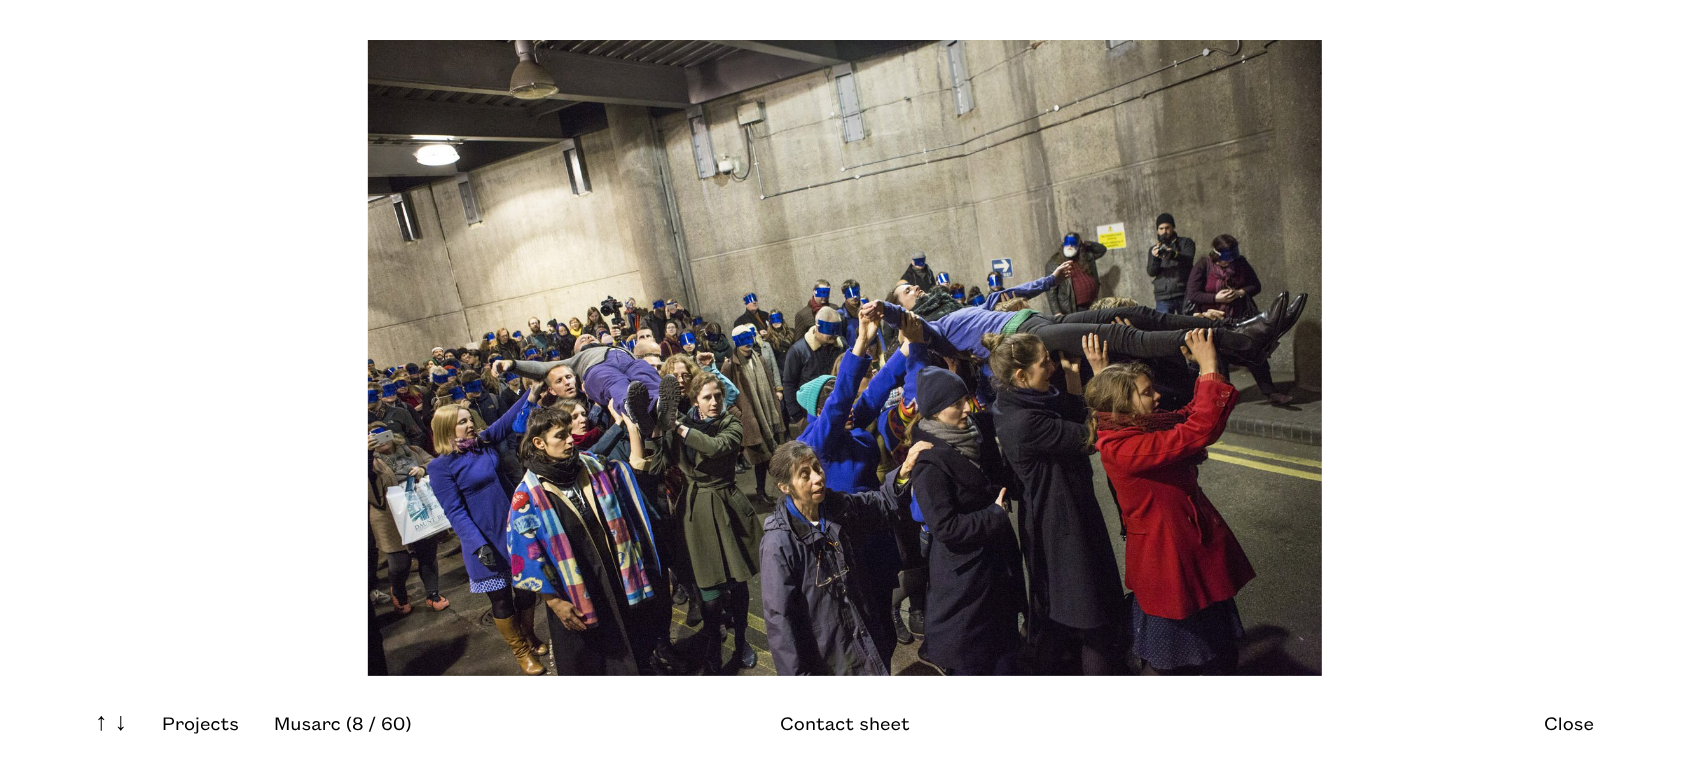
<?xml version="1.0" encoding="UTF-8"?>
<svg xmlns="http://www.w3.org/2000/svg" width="1689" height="763">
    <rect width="100%" height="100%" fill="#FFFFFF"/>
    <image x="367" y="40" width="955" height="636" href="img_01.png"/>
    <text x="95" y="730" font-family="Liberation Sans" font-size="25" fill="#000000">↑ ↓</text>
    <text x="162" y="730" font-family="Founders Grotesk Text" font-size="20" fill="#000000">Projects</text>
    <text x="274" y="730" font-family="Founders Grotesk Text" font-size="20" fill="#000000">Musarc (8 / 60)</text>
    <text x="780" y="730" font-family="Founders Grotesk Text" font-size="20" fill="#000000">Contact sheet</text>
    <text x="1544" y="730" font-family="Founders Grotesk Text" font-size="20" fill="#000000">Close</text>
</svg>
